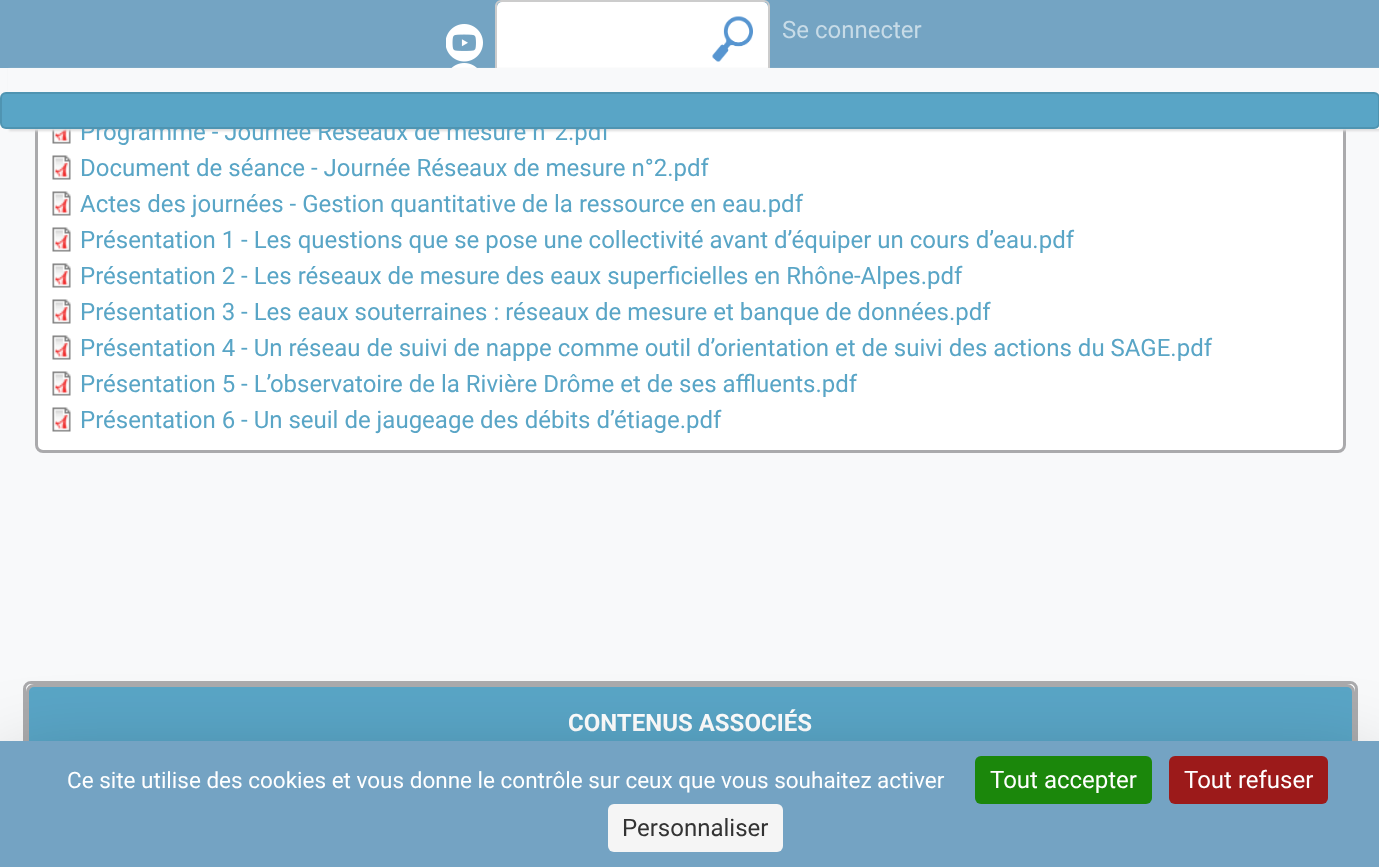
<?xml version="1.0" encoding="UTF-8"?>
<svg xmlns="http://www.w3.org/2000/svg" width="1379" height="867">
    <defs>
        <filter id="blur1" x="-50%" y="-200%" width="200%" height="500%"><feGaussianBlur stdDeviation="1"/></filter>
        <filter id="blur2" x="-50%" y="-200%" width="200%" height="500%"><feGaussianBlur stdDeviation="45"/></filter>
    </defs>
    <rect width="100%" height="100%" fill="#F8F9FA"/>
    <rect x="36.5" y="40.5" width="1308" height="411" rx="6.5" fill="#FFFFFF" stroke="#AAAAAC" stroke-width="3"/>
    <rect x="0" y="0" width="1379" height="68" fill="#74A4C3"/>
    <image x="446" y="24" width="37" height="38" href="img_01.png"/>
    <image x="451" y="63" width="26" height="5" href="img_02.png"/>
    <rect x="497" y="2" width="271" height="72" rx="5" fill="#FFFFFF"/>
    <image x="712" y="16" width="41" height="46" href="img_03.png"/>
    <rect x="496" y="1" width="273" height="73" rx="5" fill="none" stroke="#CCCCCC" stroke-width="2"/>
    <text x="782" y="38" font-family="Roboto" font-size="24" fill="#C7DBE7">Se connecter</text>
    <image x="52" y="129" width="19" height="15" href="img_04.png"/>
    <rect x="9" y="69" width="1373" height="62" fill="#DDDDDD" filter="url(#blur1)"/>
    <text x="80" y="140" font-family="Roboto" font-size="24" fill="#59A5C6">Programme - Journée Réseaux de mesure n°2.pdf</text>
    <rect x="8" y="68" width="1371" height="61" fill="#F8F9FA"/>
    <rect x="0" y="92" width="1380" height="37" rx="6" fill="#59A5C6"/>
    <rect x="1" y="93" width="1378" height="35" rx="5" fill="none" stroke="#000000" stroke-opacity="0.1" stroke-width="2"/>
    <image x="52" y="155" width="19" height="25" href="img_05.png"/>
    <text x="80" y="176" font-family="Roboto" font-size="24" fill="#59A5C6">Document de séance - Journée Réseaux de mesure n°2.pdf</text>
    <image x="52" y="191" width="19" height="25" href="img_05.png"/>
    <text x="80" y="212" font-family="Roboto" font-size="24" fill="#59A5C6">Actes des journées - Gestion quantitative de la ressource en eau.pdf</text>
    <image x="52" y="227" width="19" height="25" href="img_05.png"/>
    <text x="80" y="248" font-family="Roboto" font-size="24" fill="#59A5C6">Présentation 1 - Les questions que se pose une collectivité avant d’équiper un cours d’eau.pdf</text>
    <image x="52" y="263" width="19" height="25" href="img_05.png"/>
    <text x="80" y="284" font-family="Roboto" font-size="24" fill="#59A5C6">Présentation 2 - Les réseaux de mesure des eaux superficielles en Rhône-Alpes.pdf</text>
    <image x="52" y="299" width="19" height="25" href="img_05.png"/>
    <text x="80" y="320" font-family="Roboto" font-size="24" fill="#59A5C6">Présentation 3 - Les eaux souterraines : réseaux de mesure et banque de données.pdf</text>
    <image x="52" y="335" width="19" height="25" href="img_05.png"/>
    <text x="80" y="356" font-family="Roboto" font-size="24" fill="#59A5C6">Présentation 4 - Un réseau de suivi de nappe comme outil d’orientation et de suivi des actions du SAGE.pdf</text>
    <image x="52" y="371" width="19" height="25" href="img_05.png"/>
    <text x="80" y="392" font-family="Roboto" font-size="24" fill="#59A5C6">Présentation 5 - L’observatoire de la Rivière Drôme et de ses affluents.pdf</text>
    <image x="52" y="407" width="19" height="25" href="img_05.png"/>
    <text x="80" y="428" font-family="Roboto" font-size="24" fill="#59A5C6">Présentation 6 - Un seuil de jaugeage des débits d’étiage.pdf</text>
    <rect x="24.5" y="682.5" width="1332" height="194" rx="6.5" fill="#FFFFFF" stroke="#AAAAAC" stroke-width="3"/>
    <rect x="27.5" y="685.5" width="1326" height="75" rx="6.5" fill="#59A5C6" stroke="#AAAAAC" stroke-width="3"/>
    <text x="568" y="731" font-family="Roboto" font-size="24" font-weight="700" fill="#FFFFFF">CONTENUS ASSOCIÉS</text>
    <rect x="0" y="771" width="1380" height="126" fill="#000000" fill-opacity="0.25" filter="url(#blur2)"/>
    <rect x="0" y="741" width="1379" height="126" fill="#74A3C3"/>
    <text x="67" y="788" font-family="Roboto" font-size="22.5" fill="#FFFFFF">Ce site utilise des cookies et vous donne le contrôle sur ceux que vous souhaitez activer</text>
    <rect x="975" y="756" width="177" height="48" rx="6" fill="#1B870B"/>
    <text x="990" y="788" font-family="Roboto" font-size="24" fill="#FFFFFF">Tout accepter</text>
    <rect x="1169" y="756" width="159" height="48" rx="6" fill="#9C1A1A"/>
    <text x="1184" y="788" font-family="Roboto" font-size="24" fill="#FFFFFF">Tout refuser</text>
    <rect x="608" y="804" width="175" height="48" rx="6" fill="#F5F5F5"/>
    <text x="622" y="836" font-family="Roboto" font-size="24" fill="#333333">Personnaliser</text>
</svg>
